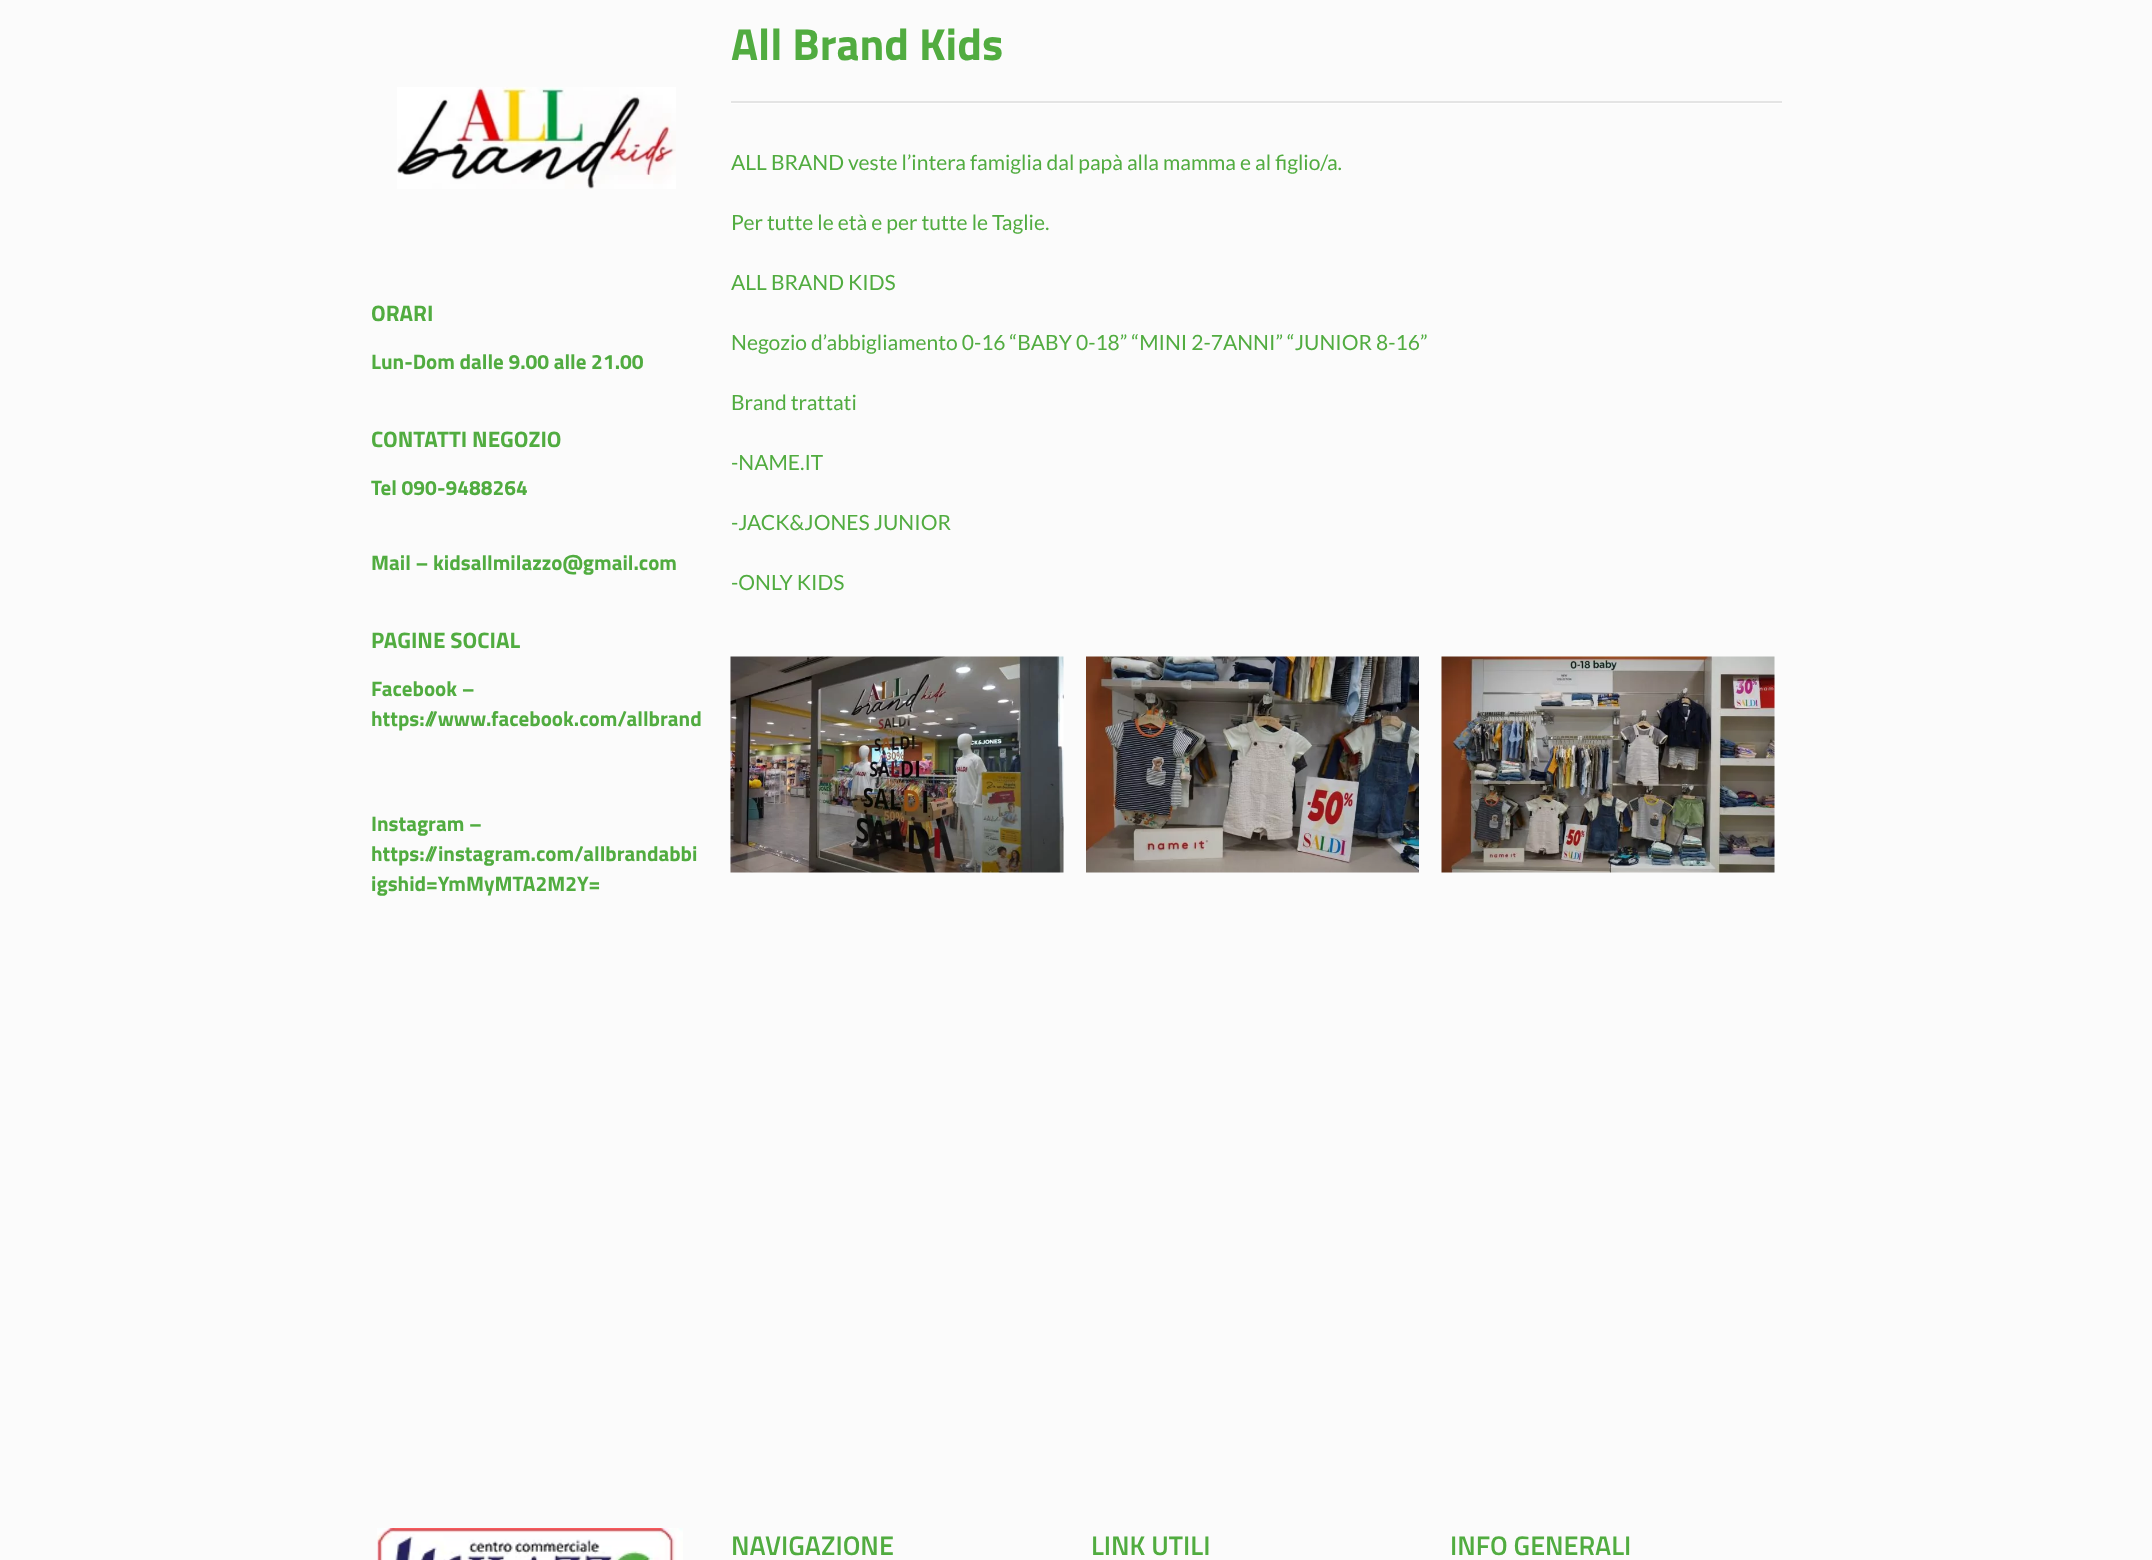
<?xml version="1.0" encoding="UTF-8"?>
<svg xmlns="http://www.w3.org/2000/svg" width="2152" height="1560">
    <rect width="100%" height="100%" fill="#FBFBFB"/>
    <image x="397" y="87" width="279" height="102" href="img_01.png"/>
    <text x="371" y="321" font-family="Titillium Web" font-size="22.5" font-weight="700" fill="#51AC40">ORARI</text>
    <text x="371" y="369" font-family="Titillium Web" font-size="21" font-weight="700" fill="#51AC40">Lun-Dom dalle 9.00 alle 21.00</text>
    <text x="371" y="447" font-family="Titillium Web" font-size="22.5" font-weight="700" fill="#51AC40">CONTATTI NEGOZIO</text>
    <text x="371" y="495" font-family="Titillium Web" font-size="21" font-weight="700" fill="#51AC40">Tel 090-9488264</text>
    <text x="371" y="570" font-family="Titillium Web" font-size="21" font-weight="700" fill="#51AC40">Mail – kidsallmilazzo@gmail.com</text>
    <text x="371" y="648" font-family="Titillium Web" font-size="22.5" font-weight="700" fill="#51AC40">PAGINE SOCIAL</text>
    <text font-family="Titillium Web" font-size="21" font-weight="700" fill="#51AC40">
        <tspan x="371" y="696">Facebook –</tspan>
        <tspan x="371" y="726">https://www.facebook.com/allbrand</tspan>
    </text>
    <text font-family="Titillium Web" font-size="21" font-weight="700" fill="#51AC40">
        <tspan x="371" y="831">Instagram –</tspan>
        <tspan x="371" y="861">https://instagram.com/allbrandabbi</tspan>
        <tspan x="371" y="891">igshid=YmMyMTA2M2Y=</tspan>
    </text>
    <text x="731" y="60" font-family="Titillium Web" font-size="45" font-weight="700" fill="#51AC40">All Brand Kids</text>
    <rect x="731" y="103" width="1051" height="1" fill="#FEFEFE"/>
    <rect x="731" y="101" width="1051" height="2" fill="#E4E4E4"/>
    <text x="731" y="170" font-family="Lato" font-size="21" fill="#51AC40">ALL BRAND veste l’intera famiglia dal papà alla mamma e al figlio/a.</text>
    <text x="731" y="230" font-family="Lato" font-size="21" fill="#51AC40">Per tutte le età e per tutte le Taglie.</text>
    <text x="731" y="290" font-family="Lato" font-size="21" fill="#51AC40">ALL BRAND KIDS</text>
    <text x="731" y="350" font-family="Lato" font-size="21" fill="#51AC40">Negozio d’abbigliamento 0-16 “BABY 0-18” “MINI 2-7ANNI” “JUNIOR 8-16”</text>
    <text x="731" y="410" font-family="Lato" font-size="21" fill="#51AC40">Brand trattati</text>
    <text x="731" y="470" font-family="Lato" font-size="21" fill="#51AC40">-NAME.IT</text>
    <text x="731" y="530" font-family="Lato" font-size="21" fill="#51AC40">-JACK&amp;JONES JUNIOR</text>
    <text x="731" y="590" font-family="Lato" font-size="21" fill="#51AC40">-ONLY KIDS</text>
    <image x="730" y="656" width="334" height="217" href="img_02.png"/>
    <image x="1086" y="656" width="333" height="217" href="img_03.png"/>
    <image x="1441" y="656" width="334" height="217" href="img_04.png"/>
    <image x="377" y="1528" width="306" height="32" href="img_05.png"/>
    <text x="731" y="1555" font-family="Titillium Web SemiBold" font-size="27" font-weight="600" fill="#51AC40">NAVIGAZIONE</text>
    <text x="1091" y="1555" font-family="Titillium Web SemiBold" font-size="27" font-weight="600" fill="#51AC40">LINK UTILI</text>
    <text x="1450" y="1555" font-family="Titillium Web SemiBold" font-size="27" font-weight="600" fill="#51AC40">INFO GENERALI</text>
</svg>
